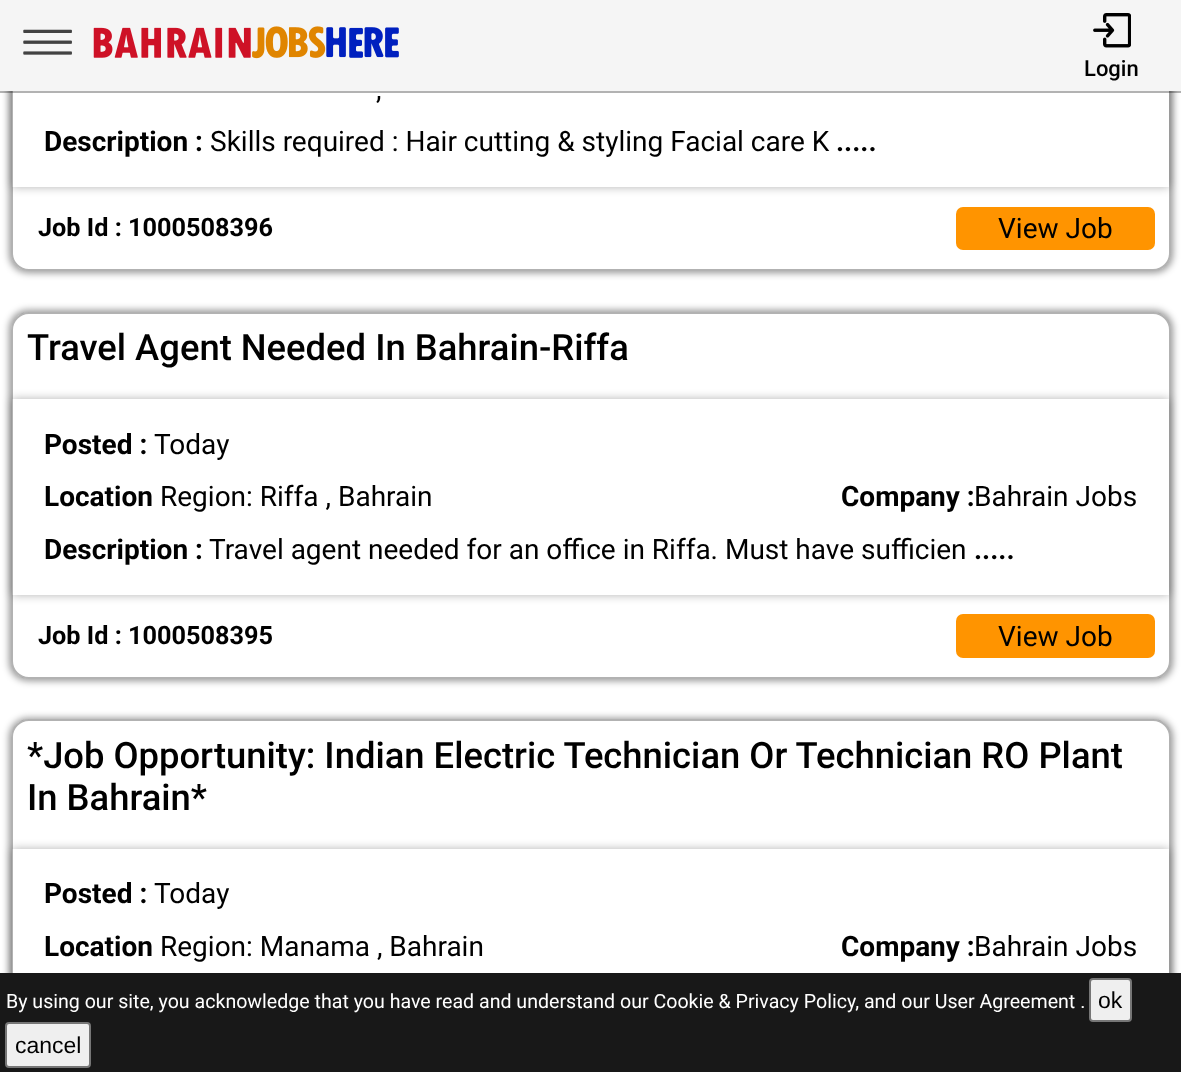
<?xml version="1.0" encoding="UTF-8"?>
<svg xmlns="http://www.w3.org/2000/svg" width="1181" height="1072">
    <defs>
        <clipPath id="clip1"><path d="M 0 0 H 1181 V 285 H 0 Z M 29 -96 H 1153 C 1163 -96 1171 -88 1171 -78 V 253 C 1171 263 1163 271 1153 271 H 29 C 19 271 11 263 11 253 V -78 C 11 -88 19 -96 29 -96 Z" clip-rule="evenodd"/></clipPath>
        <filter id="blur1" x="-50%" y="-200%" width="200%" height="500%"><feGaussianBlur stdDeviation="3.5"/></filter>
        <filter id="blur2" x="-50%" y="-200%" width="200%" height="500%"><feGaussianBlur stdDeviation="0.5"/></filter>
        <clipPath id="clip2"><path d="M 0 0 H 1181 V 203 H 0 Z M 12 -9 H 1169 V 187 H 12 Z" clip-rule="evenodd"/></clipPath>
        <filter id="blur3" x="-50%" y="-200%" width="200%" height="500%"><feGaussianBlur stdDeviation="5"/></filter>
        <clipPath id="clip3"><path d="M 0 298 H 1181 V 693 H 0 Z M 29 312 H 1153 C 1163 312 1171 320 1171 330 V 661 C 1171 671 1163 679 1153 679 H 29 C 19 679 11 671 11 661 V 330 C 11 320 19 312 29 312 Z" clip-rule="evenodd"/></clipPath>
        <clipPath id="clip4"><path d="M 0 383 H 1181 V 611 H 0 Z M 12 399 H 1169 V 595 H 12 Z" clip-rule="evenodd"/></clipPath>
        <clipPath id="clip5"><path d="M 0 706 H 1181 V 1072 H 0 Z M 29 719 H 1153 C 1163 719 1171 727 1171 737 V 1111 C 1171 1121 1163 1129 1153 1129 H 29 C 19 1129 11 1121 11 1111 V 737 C 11 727 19 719 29 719 Z" clip-rule="evenodd"/></clipPath>
        <clipPath id="clip6"><path d="M 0 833 H 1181 V 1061 H 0 Z M 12 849 H 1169 V 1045 H 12 Z" clip-rule="evenodd"/></clipPath>
    </defs>
    <rect width="100%" height="100%" fill="#FFFFFF"/>
    <g clip-path="url(#clip1)">
        <rect x="9" y="-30" width="1164" height="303" rx="19" fill="#000000" fill-opacity="0.4" filter="url(#blur1)"/>
    </g>
    <rect x="12" y="-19" width="1158" height="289" rx="17" fill="none" stroke="#000000" stroke-opacity="0.3" stroke-width="2"/>
    <rect x="0" y="0" width="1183" height="93" fill="#000000" fill-opacity="0.3" filter="url(#blur2)"/>
    <g clip-path="url(#clip2)">
        <rect x="12" y="-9" width="1157" height="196" fill="#000000" fill-opacity="0.3" filter="url(#blur3)"/>
    </g>
    <rect x="0" y="0" width="1181" height="91" fill="#F5F5F5"/>
    <image x="23" y="29" width="49" height="26" href="img_01.png"/>
    <image x="93" y="26" width="306" height="33" href="img_02.png"/>
    <image x="1093" y="13" width="38" height="35" href="img_03.png"/>
    <text x="1084" y="76" font-family="Roboto" font-size="22" font-weight="500" fill="#000000">Login</text>
    <text x="376" y="99" font-family="Roboto" font-size="28" fill="#000000">,</text>
    <text x="44" y="151" font-family="Roboto" font-size="28" font-weight="700" fill="#000000">Description :</text>
    <text x="210" y="151" font-family="Roboto" font-size="28" fill="#000000">Skills required : Hair cutting &amp; styling Facial care K</text>
    <text x="836" y="151" font-family="Roboto" font-size="28" font-weight="700" fill="#000000">.....</text>
    <text x="38" y="236" font-family="Roboto" font-size="25.25" font-weight="700" fill="#000000">Job Id : 1000508396</text>
    <rect x="956" y="207" width="199" height="43" rx="7" fill="#FF9400"/>
    <text x="998" y="238" font-family="Roboto" font-size="28" fill="#000000">View Job</text>
    <g clip-path="url(#clip3)">
        <rect x="9" y="310" width="1164" height="371" rx="19" fill="#000000" fill-opacity="0.4" filter="url(#blur1)"/>
    </g>
    <rect x="12" y="313" width="1158" height="365" rx="17" fill="none" stroke="#000000" stroke-opacity="0.3" stroke-width="2"/>
    <text x="27" y="360" font-family="Roboto" font-size="36.4" font-weight="500" fill="#000000">Travel Agent Needed In Bahrain-Riffa</text>
    <g clip-path="url(#clip4)">
        <rect x="12" y="399" width="1157" height="196" fill="#000000" fill-opacity="0.3" filter="url(#blur3)"/>
    </g>
    <text x="44" y="454" font-family="Roboto" font-size="28" font-weight="700" fill="#000000">Posted :</text>
    <text x="154" y="454" font-family="Roboto" font-size="28" fill="#000000">Today</text>
    <text x="44" y="506" font-family="Roboto" font-size="28" font-weight="700" fill="#000000">Location</text>
    <text x="160" y="506" font-family="Roboto" font-size="28" fill="#000000">Region: Riffa , Bahrain</text>
    <text x="841" y="506" font-family="Roboto" font-size="28" font-weight="700" fill="#000000">Company :</text>
    <text x="974" y="506" font-family="Roboto" font-size="28" fill="#000000">Bahrain Jobs</text>
    <text x="44" y="559" font-family="Roboto" font-size="28" font-weight="700" fill="#000000">Description :</text>
    <text x="209" y="559" font-family="Roboto" font-size="28" fill="#000000">Travel agent needed for an office in Riffa. Must have sufficien</text>
    <text x="974" y="559" font-family="Roboto" font-size="28" font-weight="700" fill="#000000">.....</text>
    <text x="38" y="644" font-family="Roboto" font-size="25.25" font-weight="700" fill="#000000">Job Id : 1000508395</text>
    <rect x="956" y="614" width="199" height="44" rx="7" fill="#FF9400"/>
    <text x="998" y="646" font-family="Roboto" font-size="28" fill="#000000">View Job</text>
    <g clip-path="url(#clip5)">
        <rect x="9" y="718" width="1164" height="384" rx="19" fill="#000000" fill-opacity="0.4" filter="url(#blur1)"/>
    </g>
    <rect x="12" y="720" width="1158" height="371" rx="17" fill="none" stroke="#000000" stroke-opacity="0.3" stroke-width="2"/>
    <text font-family="Roboto" font-size="36.4" font-weight="500" fill="#000000">
        <tspan x="27" y="768">*Job Opportunity: Indian Electric Technician Or Technician RO Plant</tspan>
        <tspan x="27" y="810">In Bahrain*</tspan>
    </text>
    <g clip-path="url(#clip6)">
        <rect x="12" y="849" width="1157" height="196" fill="#000000" fill-opacity="0.3" filter="url(#blur3)"/>
    </g>
    <text x="44" y="903" font-family="Roboto" font-size="28" font-weight="700" fill="#000000">Posted :</text>
    <text x="154" y="903" font-family="Roboto" font-size="28" fill="#000000">Today</text>
    <text x="44" y="956" font-family="Roboto" font-size="28" font-weight="700" fill="#000000">Location</text>
    <text x="160" y="956" font-family="Roboto" font-size="28" fill="#000000">Region: Manama , Bahrain</text>
    <text x="841" y="956" font-family="Roboto" font-size="28" font-weight="700" fill="#000000">Company :</text>
    <text x="974" y="956" font-family="Roboto" font-size="28" fill="#000000">Bahrain Jobs</text>
    <rect x="0" y="973" width="1181" height="99" fill="#181818"/>
    <text x="6" y="1008" font-family="Roboto" font-size="19.6" fill="#FFFFFF">By using our site, you acknowledge that you have read and understand our Cookie &amp; Privacy Policy, and our User Agreement .</text>
    <rect x="1090" y="979" width="41" height="42" rx="3" fill="#EFEFEF" stroke="#767676" stroke-width="2"/>
    <text x="1098" y="1008" font-family="Liberation Sans" font-size="23" fill="#000000">ok</text>
    <rect x="6" y="1023" width="84" height="44" rx="3" fill="#EFEFEF" stroke="#767676" stroke-width="2"/>
    <text x="15" y="1053" font-family="Liberation Sans" font-size="23" fill="#000000">cancel</text>
</svg>
